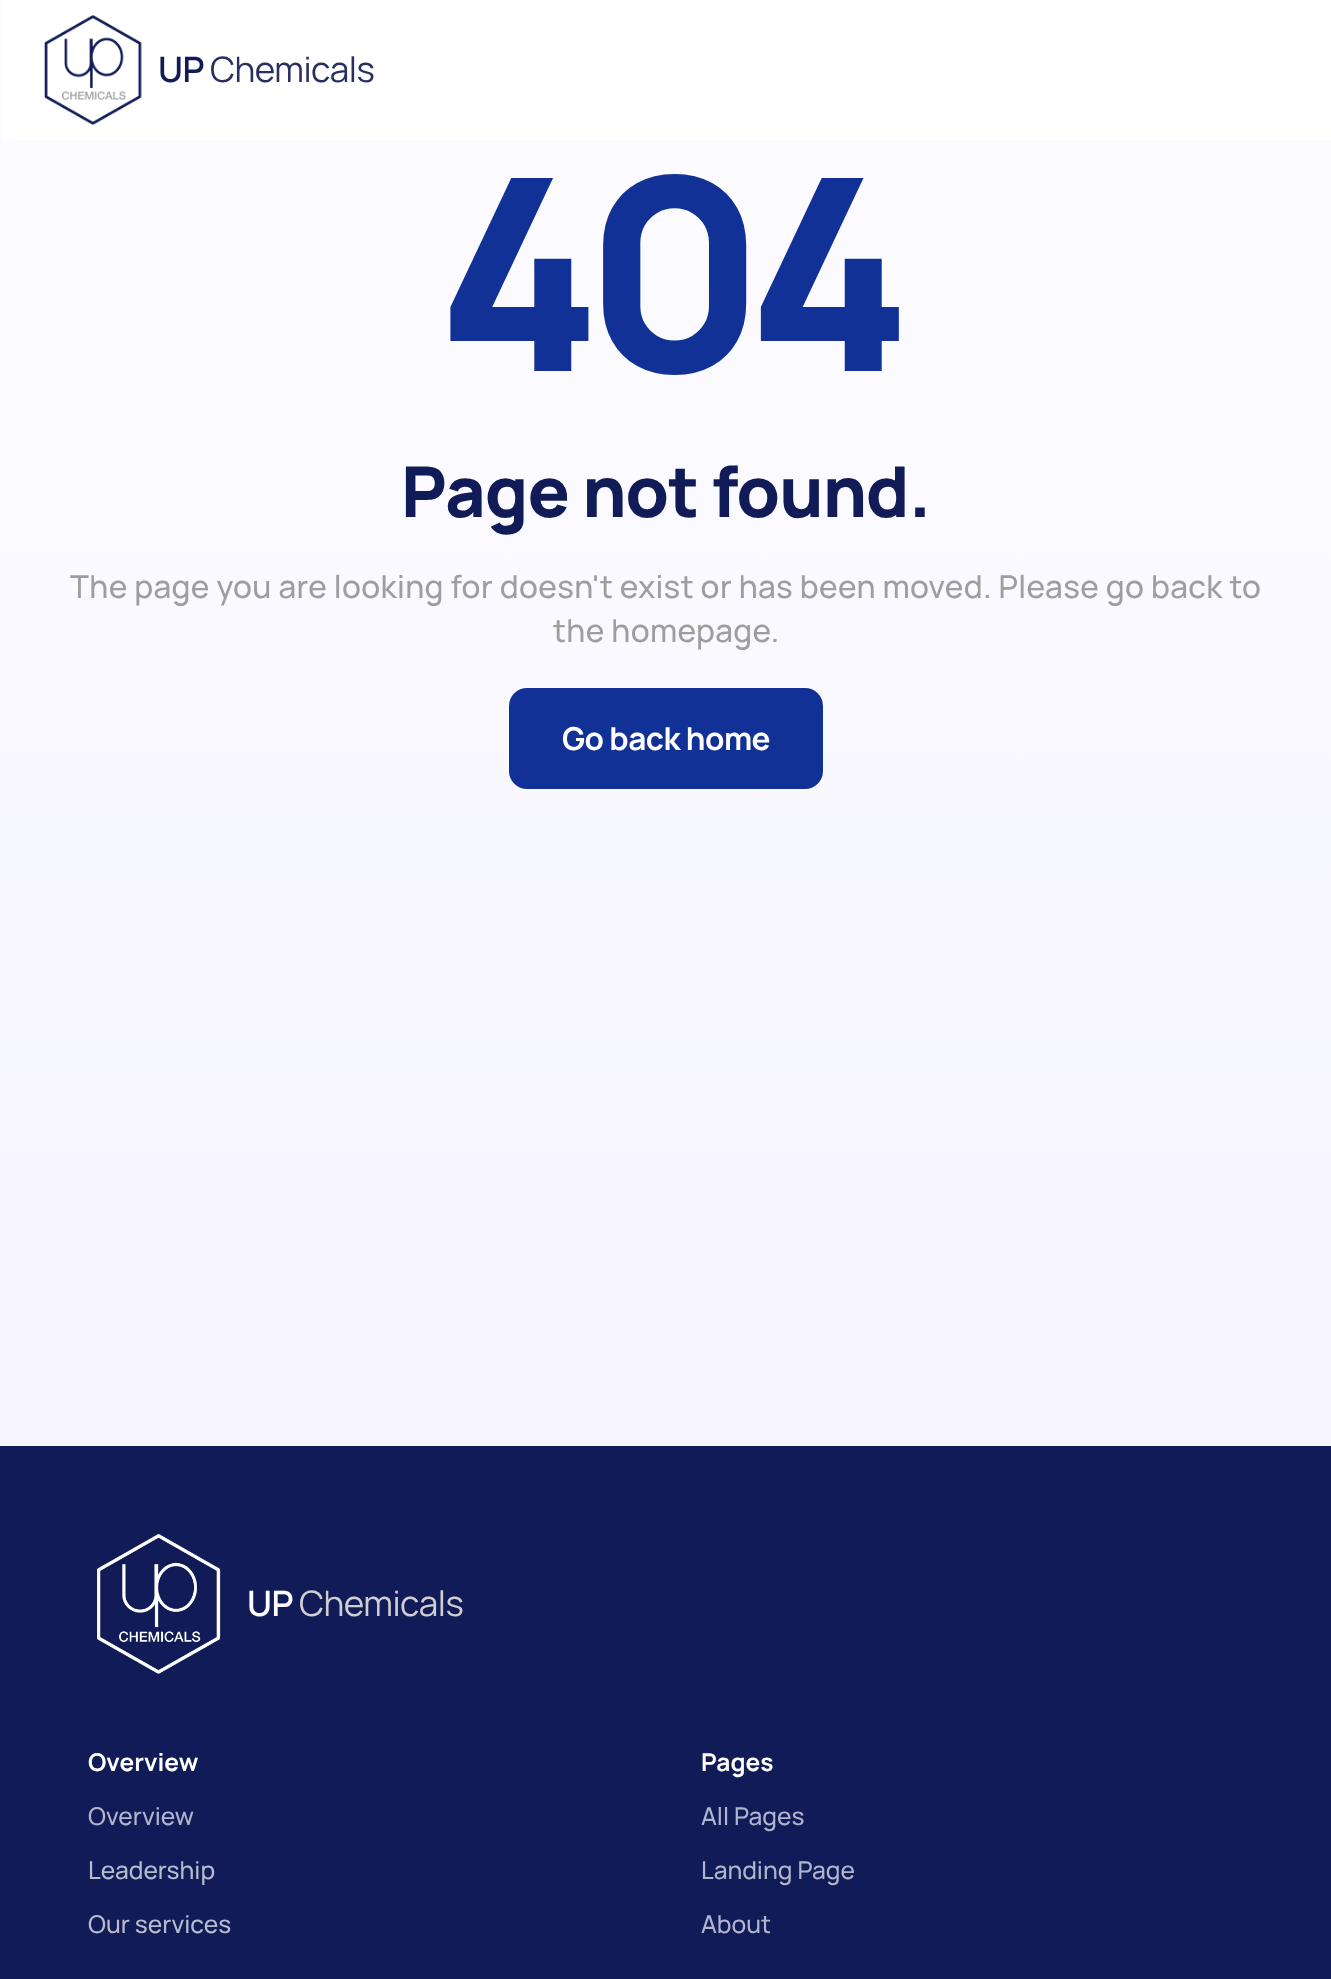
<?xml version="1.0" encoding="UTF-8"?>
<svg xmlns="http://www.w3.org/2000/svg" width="1331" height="1979">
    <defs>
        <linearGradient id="g1" gradientUnits="userSpaceOnUse" x1="666" y1="1446" x2="666" y2="-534"><stop offset="0" stop-color="#F6F5FF"/><stop offset="1" stop-color="#FFFFFF"/></linearGradient>
    </defs>
    <rect width="100%" height="100%" fill="#101B57"/>
    <rect x="0" y="0" width="1331" height="1446" fill="url(#g1)"/>
    <rect x="2" y="0" width="1329" height="140" fill="#FFFFFF"/>
    <image x="44" y="15" width="98" height="110" href="img_01.png"/>
    <text x="158" y="82" font-family="Manrope" font-size="35" font-weight="600" letter-spacing="-0.5" fill="#101B57">UP</text>
    <text x="210" y="82" font-family="Manrope" font-size="35" letter-spacing="-0.5" fill="#293061">Сhemicals</text>
    <text x="437" y="371" font-family="Manrope" font-size="268" font-weight="800" letter-spacing="-17.5" fill="#123197">404</text>
    <text x="401" y="517" font-family="Manrope" font-size="70" font-weight="800" letter-spacing="-0.9" fill="#101B57">Page not found.</text>
    <text x="70" y="598" font-family="Manrope" font-size="31.5" font-weight="500" letter-spacing="0.35" fill="#9D9E9D">The page you are looking for doesn't exist or has been moved. Please go back to</text>
    <text x="553" y="642" font-family="Manrope" font-size="31.5" font-weight="500" letter-spacing="0.35" fill="#9D9E9D">the homepage.</text>
    <rect x="509" y="688" width="314" height="101" rx="18" fill="#123197"/>
    <text x="562" y="750" font-family="Manrope" font-size="31.5" font-weight="700" letter-spacing="-0.5" fill="#FFFFFF">Go back home</text>
    <image x="97" y="1534" width="124" height="140" href="img_02.png"/>
    <text x="247" y="1616" font-family="Manrope" font-size="35" font-weight="600" letter-spacing="-0.5" fill="#FFFFFF">UP</text>
    <text x="299" y="1616" font-family="Manrope" font-size="35" letter-spacing="-0.5" fill="#CFCFCF">Chemicals</text>
    <text x="88" y="1771" font-family="Manrope" font-size="24.5" font-weight="700" fill="#FFFFFF">Overview</text>
    <text x="88" y="1825" font-family="Manrope" font-size="24.5" font-weight="500" fill="#B1B4CD">Overview</text>
    <text x="88" y="1879" font-family="Manrope" font-size="24.5" font-weight="500" fill="#B7BBCD">Leadership</text>
    <text x="88" y="1933" font-family="Manrope" font-size="24.5" font-weight="500" fill="#B7BBCD">Our services</text>
    <text x="701" y="1771" font-family="Manrope" font-size="24.5" font-weight="700" fill="#FFFFFF">Pages</text>
    <text x="701" y="1825" font-family="Manrope" font-size="24.5" font-weight="500" fill="#B1B4CD">All Pages</text>
    <text x="701" y="1879" font-family="Manrope" font-size="24.5" font-weight="500" fill="#B1B4CD">Landing Page</text>
    <text x="701" y="1933" font-family="Manrope" font-size="24.5" font-weight="500" fill="#B1B4CD">About</text>
</svg>
